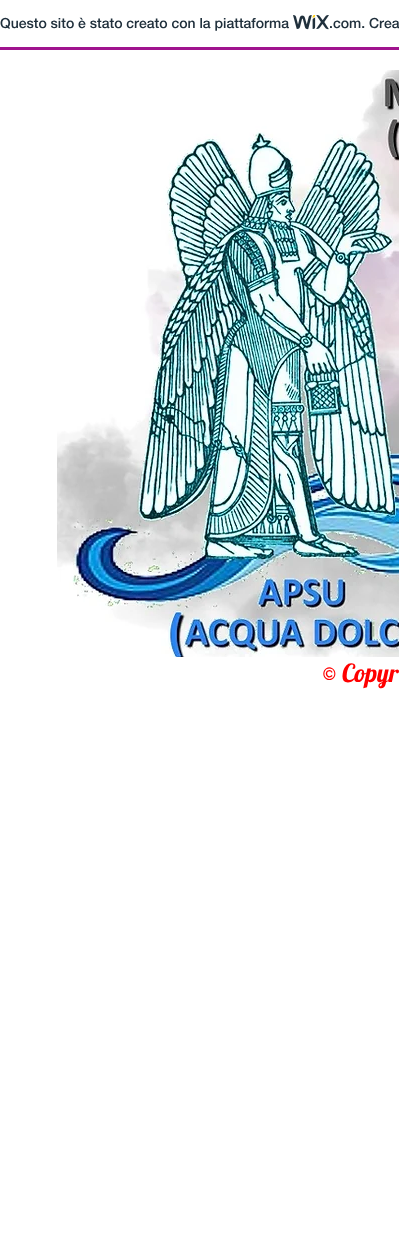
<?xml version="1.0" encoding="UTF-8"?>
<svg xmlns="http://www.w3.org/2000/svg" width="399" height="1253">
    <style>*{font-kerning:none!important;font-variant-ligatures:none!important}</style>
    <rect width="100%" height="100%" fill="#FFFFFF"/>
    <rect x="0" y="47" width="399" height="3" fill="#A0138E"/>
    <text x="0" y="28" font-family="'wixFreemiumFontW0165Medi'" font-size="14" font-weight="500" fill="#20303C">Questo sito è stato creato con la piattaforma</text>
    <image x="293" y="15" width="36" height="15" href="img_01.png"/>
    <text x="329" y="28" font-family="'wixFreemiumFontW0165Medi'" font-size="14" font-weight="500" fill="#20303C">.com. Crea</text>
    <image x="57" y="70" width="342" height="587" href="img_02.png"/>
    <text x="322" y="682" font-family="Lobster" font-size="25" fill="#FF0000">© Copyr</text>
</svg>
